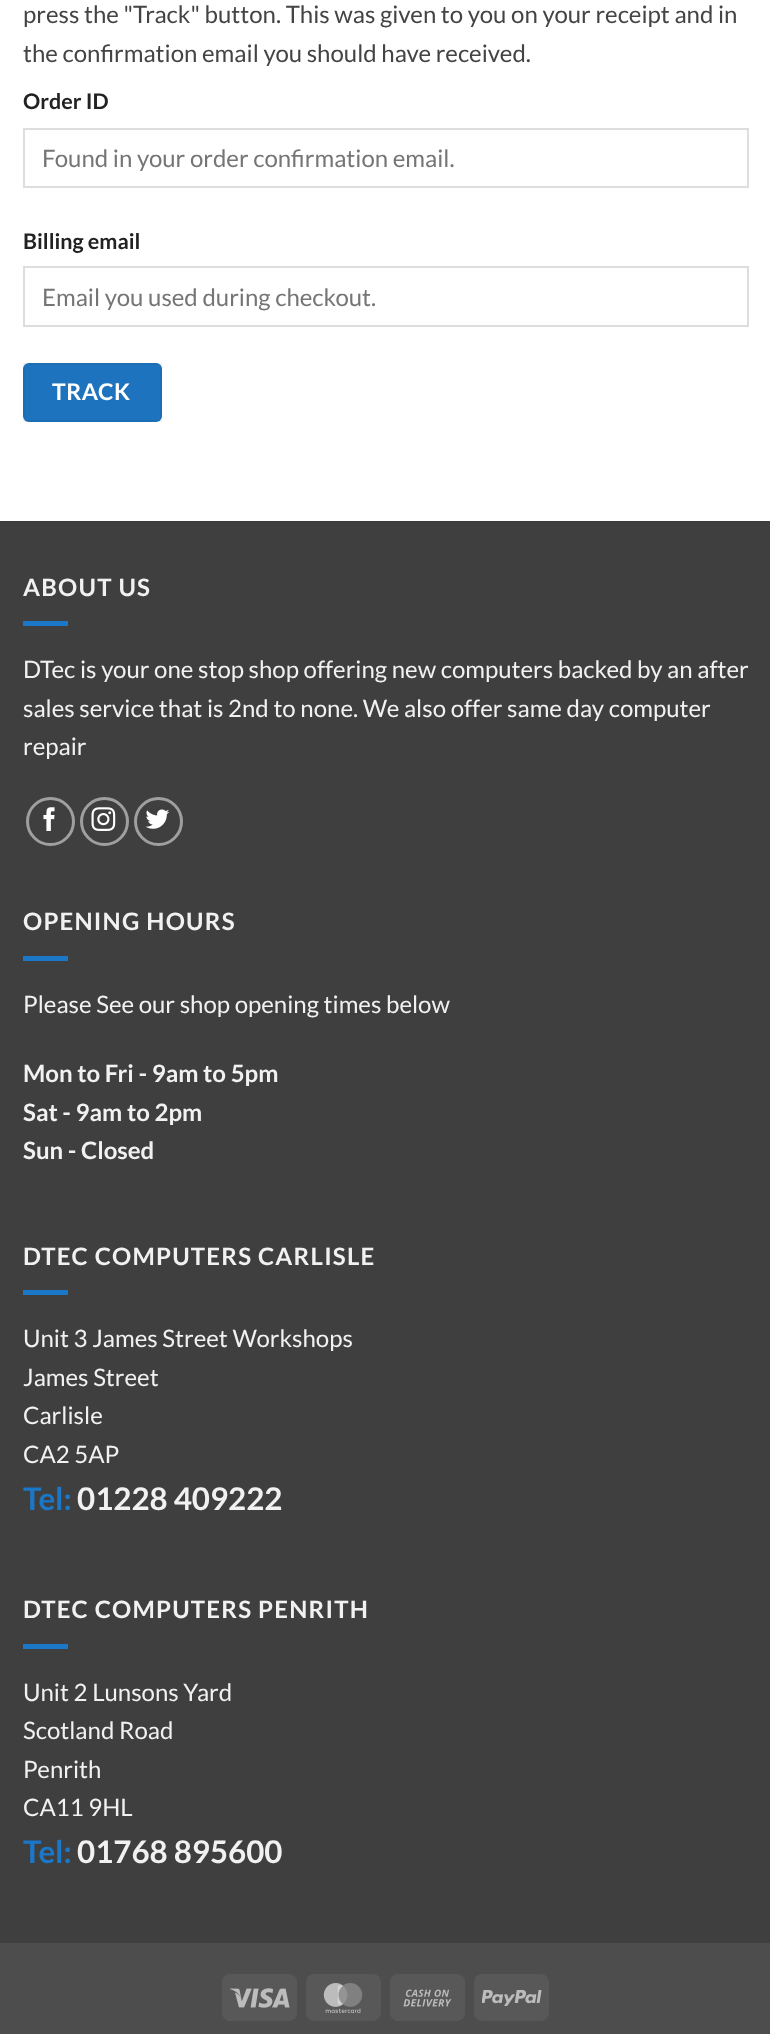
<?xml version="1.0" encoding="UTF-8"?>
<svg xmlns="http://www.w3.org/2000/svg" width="770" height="2034">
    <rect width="100%" height="100%" fill="#FFFFFF"/>
    <text font-family="Lato" font-size="24" fill="#444444">
        <tspan x="23" y="23">press the "Track" button. This was given to you on your receipt and in</tspan>
        <tspan x="23" y="62">the confirmation email you should have received.</tspan>
    </text>
    <text x="23" y="109" font-family="Lato" font-size="21.5" font-weight="700" fill="#222222">Order ID</text>
    <rect x="24" y="129" width="724" height="58" fill="none" stroke="#DDDDDD" stroke-width="2"/>
    <text x="42" y="167" font-family="Lato" font-size="24" fill="#757575">Found in your order confirmation email.</text>
    <text x="23" y="249" font-family="Lato" font-size="21.5" font-weight="700" fill="#222222">Billing email</text>
    <rect x="24" y="267" width="724" height="59" fill="none" stroke="#DDDDDD" stroke-width="2"/>
    <text x="42" y="306" font-family="Lato" font-size="24" fill="#757575">Email you used during checkout.</text>
    <rect x="23" y="363" width="139" height="59" rx="6" fill="#1E73BE"/>
    <rect x="24" y="364" width="137" height="57" fill="none" stroke="#000000" stroke-opacity="0.05" stroke-width="2"/>
    <text x="52" y="400" font-family="Lato" font-size="23" font-weight="700" letter-spacing="0.5" fill="#FFFFFF">TRACK</text>
    <rect x="0" y="523" width="770" height="1420" fill="#3F3F3F"/>
    <rect x="0" y="521" width="770" height="2" fill="#3C3C3C"/>
    <text x="23" y="596" font-family="Lato" font-size="24" font-weight="700" letter-spacing="1.2" fill="#F1F1F1">ABOUT US</text>
    <rect x="23" y="621" width="45" height="5" fill="#1B78C9"/>
    <text font-family="Lato" font-size="24" fill="#F1F1F1">
        <tspan x="23" y="678">DTec is your one stop shop offering new computers backed by an after</tspan>
        <tspan x="23" y="717">sales service that is 2nd to none. We also offer same day computer</tspan>
        <tspan x="23" y="755">repair</tspan>
    </text>
    <circle cx="50.5" cy="821.5" r="23" fill="none" stroke="#9F9F9F" stroke-width="3"/>
    <image x="43" y="807" width="12" height="24" href="img_01.png"/>
    <circle cx="104.5" cy="821.5" r="23" fill="none" stroke="#9F9F9F" stroke-width="3"/>
    <image x="91" y="807" width="25" height="24" href="img_02.png"/>
    <circle cx="158.5" cy="821.5" r="23" fill="none" stroke="#9F9F9F" stroke-width="3"/>
    <image x="145" y="809" width="25" height="20" href="img_03.png"/>
    <text x="23" y="930" font-family="Lato" font-size="24" font-weight="700" letter-spacing="1.2" fill="#F1F1F1">OPENING HOURS</text>
    <rect x="23" y="956" width="45" height="5" fill="#1B78C9"/>
    <text x="23" y="1013" font-family="Lato" font-size="24" fill="#F1F1F1">Please See our shop opening times below</text>
    <text font-family="Lato" font-size="24" font-weight="700" fill="#F1F1F1">
        <tspan x="23" y="1082">Mon to Fri - 9am to 5pm</tspan>
        <tspan x="23" y="1121">Sat - 9am to 2pm</tspan>
        <tspan x="23" y="1159">Sun - Closed</tspan>
    </text>
    <text x="23" y="1265" font-family="Lato" font-size="24" font-weight="700" letter-spacing="1.2" fill="#F1F1F1">DTEC COMPUTERS CARLISLE</text>
    <rect x="23" y="1290" width="45" height="5" fill="#1B78C9"/>
    <text font-family="Lato" font-size="24" fill="#F1F1F1">
        <tspan x="23" y="1347">Unit 3 James Street Workshops</tspan>
        <tspan x="23" y="1386">James Street</tspan>
        <tspan x="23" y="1424">Carlisle</tspan>
        <tspan x="23" y="1463">CA2 5AP</tspan>
    </text>
    <text x="23" y="1510" font-family="Lato" font-size="31.25" font-weight="700" fill="#1B78C9">Tel:</text>
    <text x="77" y="1510" font-family="Lato" font-size="31.25" font-weight="700" fill="#F1F1F1">01228 409222</text>
    <text x="23" y="1618" font-family="Lato" font-size="24" font-weight="700" letter-spacing="1.2" fill="#F1F1F1">DTEC COMPUTERS PENRITH</text>
    <rect x="23" y="1644" width="45" height="5" fill="#1B78C9"/>
    <text font-family="Lato" font-size="24" fill="#F1F1F1">
        <tspan x="23" y="1701">Unit 2 Lunsons Yard</tspan>
        <tspan x="23" y="1739">Scotland Road</tspan>
        <tspan x="23" y="1778">Penrith</tspan>
        <tspan x="23" y="1816">CA11 9HL</tspan>
    </text>
    <text x="23" y="1863" font-family="Lato" font-size="31.25" font-weight="700" fill="#1B78C9">Tel:</text>
    <text x="77" y="1863" font-family="Lato" font-size="31.25" font-weight="700" fill="#F1F1F1">01768 895600</text>
    <rect x="0" y="1943" width="770" height="91" fill="#4D4D4D"/>
    <rect x="222" y="1974" width="75" height="47" rx="8" fill="#585858"/>
    <image x="230" y="1988" width="60" height="20" href="img_04.png"/>
    <rect x="306" y="1974" width="75" height="47" rx="8" fill="#585858"/>
    <image x="323" y="1983" width="40" height="30" href="img_05.png"/>
    <rect x="390" y="1974" width="75" height="47" rx="8" fill="#585858"/>
    <image x="403" y="1989" width="49" height="18" href="img_06.png"/>
    <rect x="474" y="1974" width="75" height="47" rx="8" fill="#585858"/>
    <image x="482" y="1990" width="60" height="16" href="img_07.png"/>
</svg>
